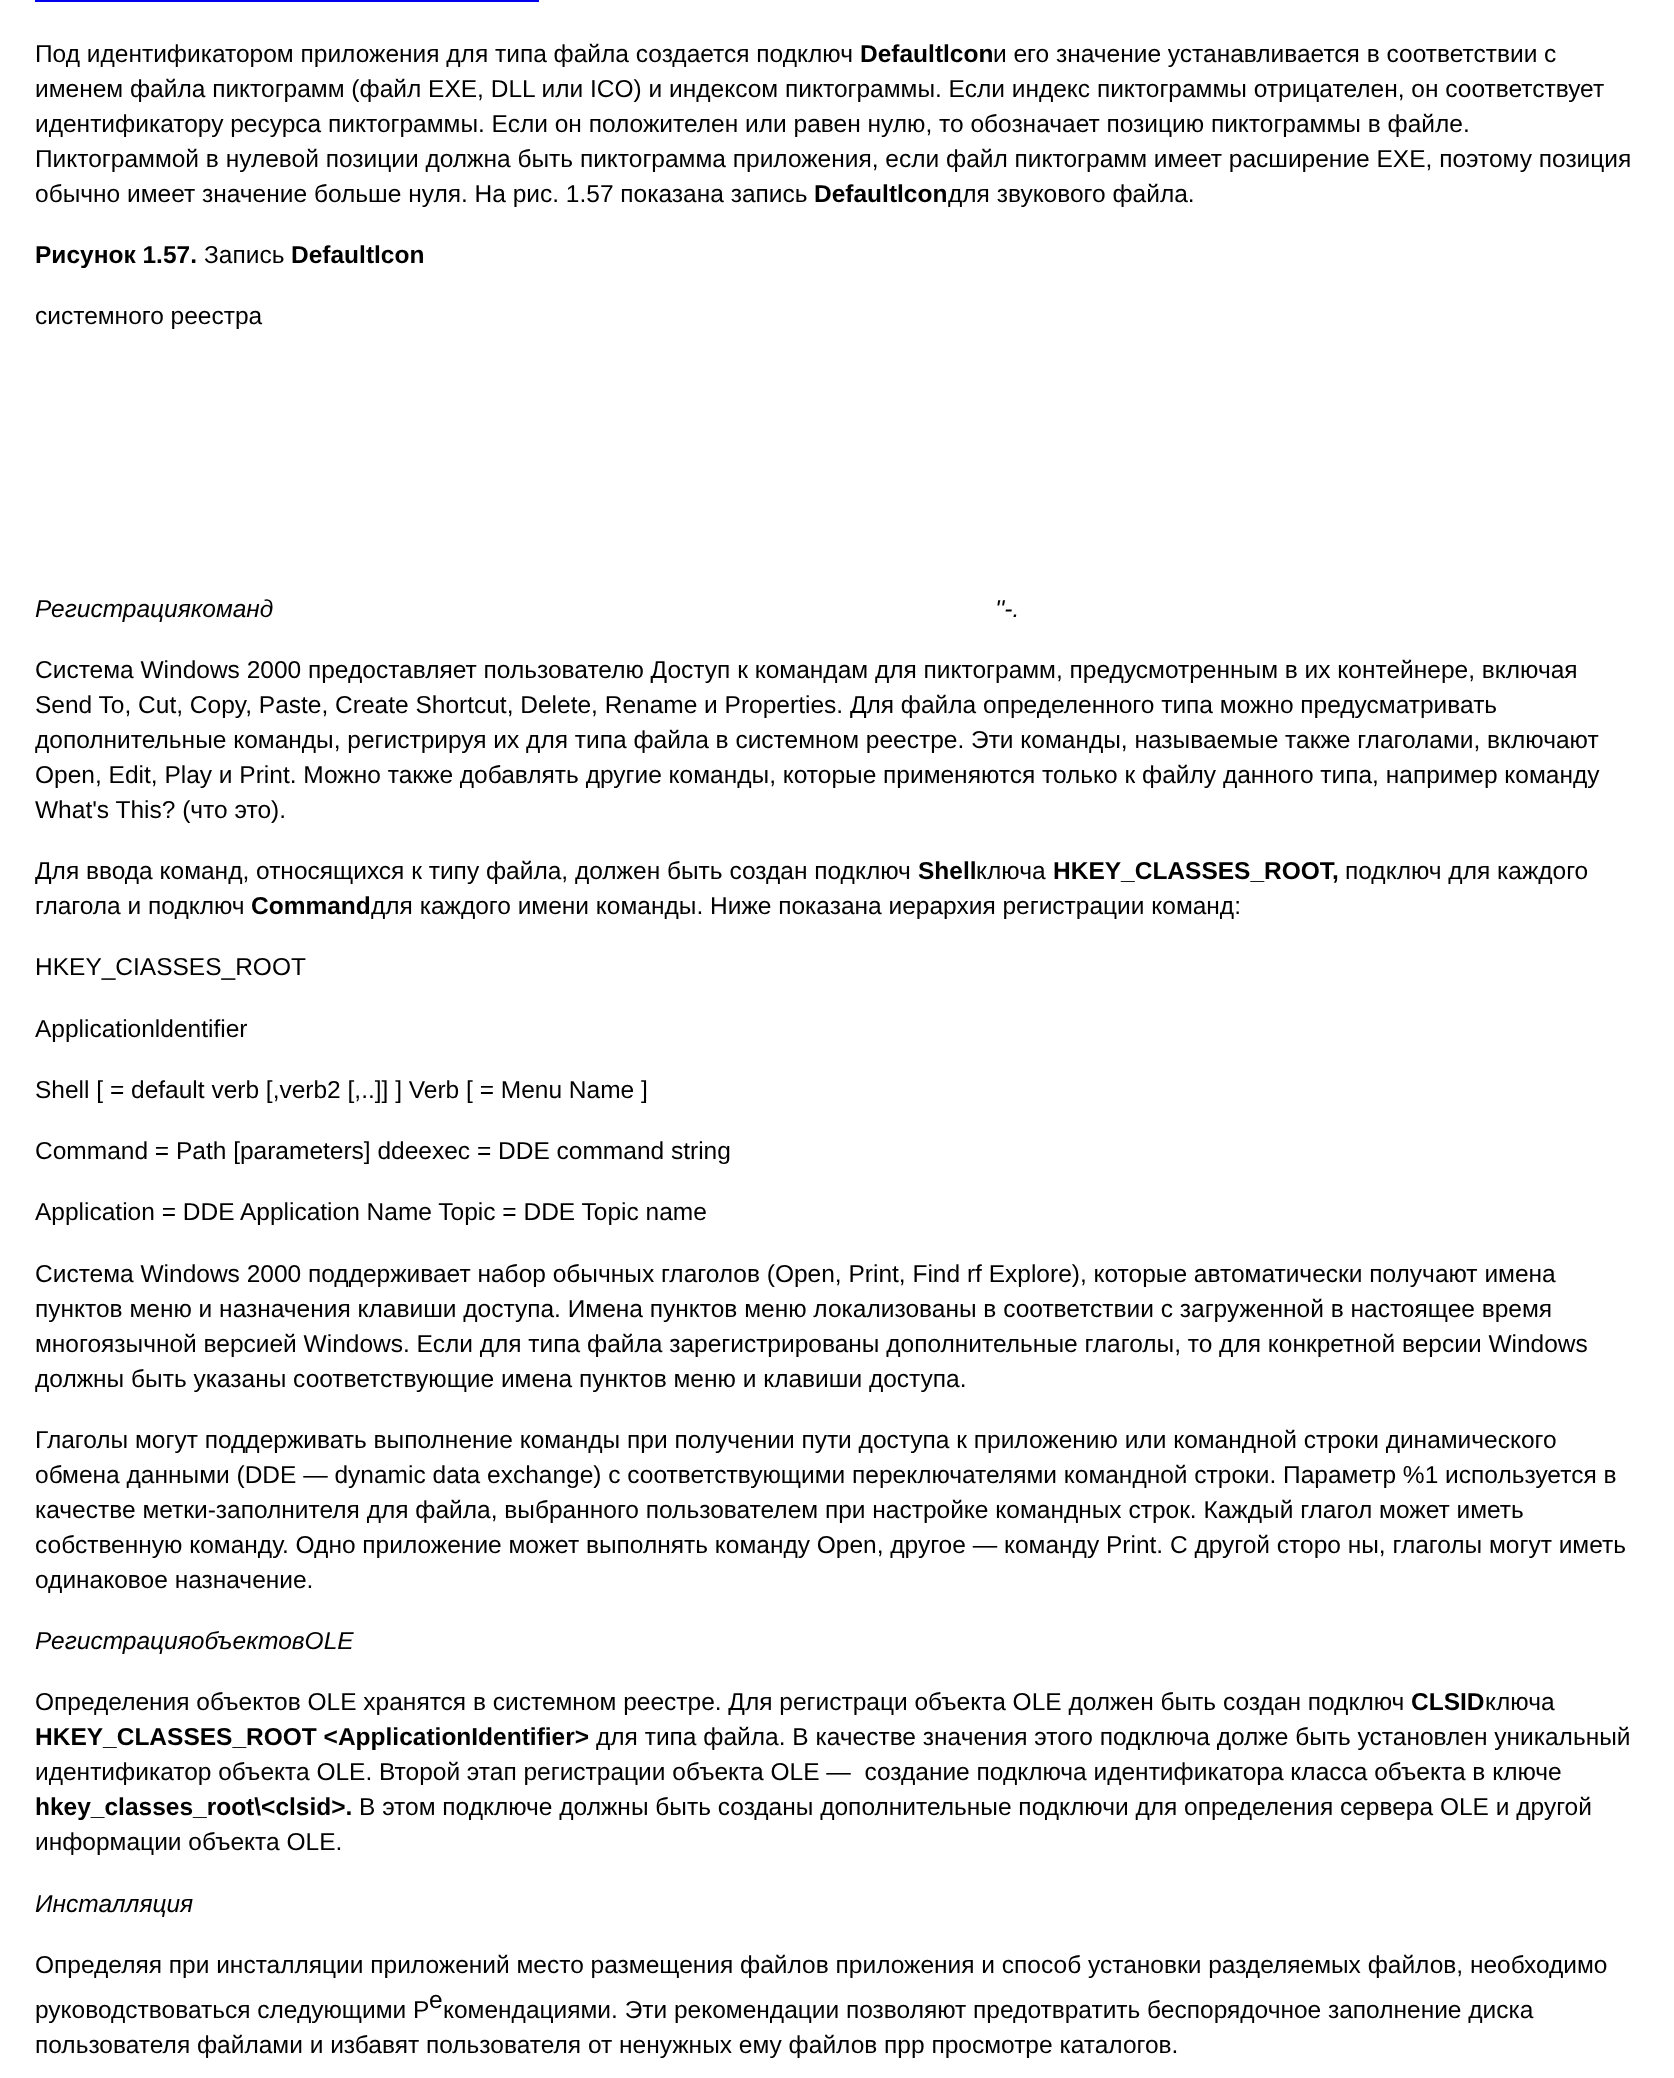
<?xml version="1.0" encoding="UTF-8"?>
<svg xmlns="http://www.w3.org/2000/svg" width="1674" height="2078">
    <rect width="100%" height="100%" fill="#FFFFFF"/>
    <rect x="35" y="0" width="504" height="2" fill="#0000EE"/>
    <text x="35" y="62" font-family="Liberation Sans" font-size="24.5" fill="#000000">Под идентификатором приложения для типа файла создается подключ</text>
    <text x="860" y="62" font-family="Liberation Sans" font-size="24.5" font-weight="700" fill="#000000">Defaultlcon</text>
    <text x="993" y="62" font-family="Liberation Sans" font-size="24.5" fill="#000000">и его значение устанавливается в соответствии с</text>
    <text font-family="Liberation Sans" font-size="24.5" fill="#000000">
        <tspan x="35" y="97">именем файла пиктограмм (файл ЕХЕ, DLL или ICO) и индексом пиктограммы. Если индекс пиктограммы отрицателен, он соответствует</tspan>
        <tspan x="35" y="132">идентификатору ресурса пиктограммы. Если он положителен или равен нулю, то обозначает позицию пиктограммы в файле.</tspan>
        <tspan x="35" y="167">Пиктограммой в нулевой позиции должна быть пиктограмма приложения, если файл пиктограмм имеет расширение ЕХЕ, поэтому позиция</tspan>
        <tspan x="35" y="202">обычно имеет значение больше нуля. На рис. 1.57 показана запись</tspan>
    </text>
    <text x="814" y="202" font-family="Liberation Sans" font-size="24.5" font-weight="700" fill="#000000">Defaultlcon</text>
    <text x="948" y="202" font-family="Liberation Sans" font-size="24.5" fill="#000000">для звукового файла.</text>
    <text x="35" y="263" font-family="Liberation Sans" font-size="24.5" font-weight="700" fill="#000000">Рисунок 1.57.</text>
    <text x="204" y="263" font-family="Liberation Sans" font-size="24.5" fill="#000000">Запись</text>
    <text x="291" y="263" font-family="Liberation Sans" font-size="24.5" font-weight="700" fill="#000000">Defaultlcon</text>
    <text x="35" y="324" font-family="Liberation Sans" font-size="24.5" fill="#000000">системного реестра</text>
    <text x="35" y="617" font-family="Liberation Sans" font-size="24.5" font-style="italic" fill="#000000">Регистрациякоманд</text>
    <text x="995" y="617" font-family="Liberation Sans" font-size="24.5" font-style="italic" fill="#000000">''-.</text>
    <text font-family="Liberation Sans" font-size="24.5" fill="#000000">
        <tspan x="35" y="678">Система Windows 2000 предоставляет пользователю Доступ к командам для пиктограмм, предусмотренным в их контейнере, включая</tspan>
        <tspan x="35" y="713">Send To, Cut, Copy, Paste, Create Shortcut, Delete, Rename и Properties. Для файла определенного типа можно предусматривать</tspan>
        <tspan x="35" y="748">дополнительные команды, регистрируя их для типа файла в системном реестре. Эти команды, называемые также глаголами, включают</tspan>
        <tspan x="35" y="783">Open, Edit, Play и Print. Можно также добавлять другие команды, которые применяются только к файлу данного типа, например команду</tspan>
        <tspan x="35" y="818">What's This? (что это).</tspan>
    </text>
    <text x="35" y="879" font-family="Liberation Sans" font-size="24.5" fill="#000000">Для ввода команд, относящихся к типу файла, должен быть создан подключ</text>
    <text x="918" y="879" font-family="Liberation Sans" font-size="24.5" font-weight="700" fill="#000000">Shell</text>
    <text x="976" y="879" font-family="Liberation Sans" font-size="24.5" fill="#000000">ключа</text>
    <text x="1053" y="879" font-family="Liberation Sans" font-size="24.5" font-weight="700" fill="#000000">HKEY_CLASSES_ROOT</text>
    <text x="1345" y="879" font-family="Liberation Sans" font-size="24.5" fill="#000000">подключ для каждого</text>
    <text x="1332" y="879" font-family="Liberation Sans" font-size="24.5" font-weight="700" fill="#000000">,</text>
    <text x="35" y="914" font-family="Liberation Sans" font-size="24.5" fill="#000000">глагола и подключ</text>
    <text x="251" y="914" font-family="Liberation Sans" font-size="24.5" font-weight="700" fill="#000000">Command</text>
    <text x="371" y="914" font-family="Liberation Sans" font-size="24.5" fill="#000000">для каждого имени команды. Ниже показана иерархия регистрации команд:</text>
    <text x="35" y="975" font-family="Liberation Sans" font-size="24.5" fill="#000000">HKEY_CIASSES_ROOT</text>
    <text x="35" y="1037" font-family="Liberation Sans" font-size="24.5" fill="#000000">Applicationldentifier</text>
    <text x="35" y="1098" font-family="Liberation Sans" font-size="24.5" fill="#000000">Shell [ = default verb [,verb2 [,..]] ] Verb [ = Menu Name ]</text>
    <text x="35" y="1159" font-family="Liberation Sans" font-size="24.5" fill="#000000">Command = Path [parameters] ddeexec = DDE command string</text>
    <text x="35" y="1220" font-family="Liberation Sans" font-size="24.5" fill="#000000">Application = DDE Application Name Topic = DDE Topic name</text>
    <text font-family="Liberation Sans" font-size="24.5" fill="#000000">
        <tspan x="35" y="1282">Система Windows 2000 поддерживает набор обычных глаголов (Open, Print, Find rf Explore), которые автоматически получают имена</tspan>
        <tspan x="35" y="1317">пунктов меню и назначения клавиши доступа. Имена пунктов меню локализованы в соответствии с загруженной в настоящее время</tspan>
        <tspan x="35" y="1352">многоязычной версией Windows. Если для типа файла зарегистрированы дополнительные глаголы, то для конкретной версии Windows</tspan>
        <tspan x="35" y="1387">должны быть указаны соответствующие имена пунктов меню и клавиши доступа.</tspan>
    </text>
    <text font-family="Liberation Sans" font-size="24.5" fill="#000000">
        <tspan x="35" y="1448">Глаголы могут поддерживать выполнение команды при получении пути доступа к приложению или командной строки динамического</tspan>
        <tspan x="35" y="1483">обмена данными (DDE — dynamic data exchange) с соответствующими переключателями командной строки. Параметр %1 используется в</tspan>
        <tspan x="35" y="1518">качестве метки-заполнителя для файла, выбранного пользователем при настройке командных строк. Каждый глагол может иметь</tspan>
        <tspan x="35" y="1553">собственную команду. Одно приложение может выполнять команду Open, другое — команду Print. С другой сторо ны, глаголы могут иметь</tspan>
        <tspan x="35" y="1588">одинаковое назначение.</tspan>
    </text>
    <text x="35" y="1649" font-family="Liberation Sans" font-size="24.5" font-style="italic" fill="#000000">РегистрацияобъектовOLE</text>
    <text x="35" y="1710" font-family="Liberation Sans" font-size="24.5" fill="#000000">Определения объектов OLE хранятся в системном реестре. Для регистраци объекта OLE должен быть создан подключ</text>
    <text x="1411" y="1710" font-family="Liberation Sans" font-size="24.5" font-weight="700" fill="#000000">CLSID</text>
    <text x="1485" y="1710" font-family="Liberation Sans" font-size="24.5" fill="#000000">ключа</text>
    <text x="35" y="1745" font-family="Liberation Sans" font-size="24.5" font-weight="700" fill="#000000">HKEY_CLASSES_ROOT &lt;ApplicationIdentifier&gt;</text>
    <text x="596" y="1745" font-family="Liberation Sans" font-size="24.5" fill="#000000">для типа файла. В качестве значения этого подключа долже быть установлен уникальный</text>
    <text x="35" y="1780" font-family="Liberation Sans" font-size="24.5" fill="#000000" xml:space="preserve">идентификатор объекта OLE. Второй этап регистрации объекта OLE —  создание подключа идентификатора класса объекта в ключе</text>
    <text x="35" y="1815" font-family="Liberation Sans" font-size="24.5" font-weight="700" fill="#000000">hkey_classes_root\&lt;clsid&gt;.</text>
    <text x="359" y="1815" font-family="Liberation Sans" font-size="24.5" fill="#000000">В этом подключе должны быть созданы дополнительные подключи для определения сервера OLE и другой</text>
    <text x="35" y="1850" font-family="Liberation Sans" font-size="24.5" fill="#000000">информации объекта OLE.</text>
    <text x="35" y="1912" font-family="Liberation Sans" font-size="24.5" font-style="italic" fill="#000000">Инсталляция</text>
    <text font-family="Liberation Sans" font-size="24.5" fill="#000000">
        <tspan x="35" y="1973">Определяя при инсталляции приложений место размещения файлов приложения и способ установки разделяемых файлов, необходимо</tspan>
        <tspan x="35" y="2018">руководствоваться следующими Р</tspan>
    </text>
    <text x="429" y="2008" font-family="Liberation Sans" font-size="24.5" fill="#000000">е</text>
    <text x="443" y="2018" font-family="Liberation Sans" font-size="24.5" fill="#000000">комендациями. Эти рекомендации позволяют предотвратить беспорядочное заполнение диска</text>
    <text x="35" y="2053" font-family="Liberation Sans" font-size="24.5" fill="#000000">пользователя файлами и избавят пользователя от ненужных ему файлов прр просмотре каталогов.</text>
</svg>
